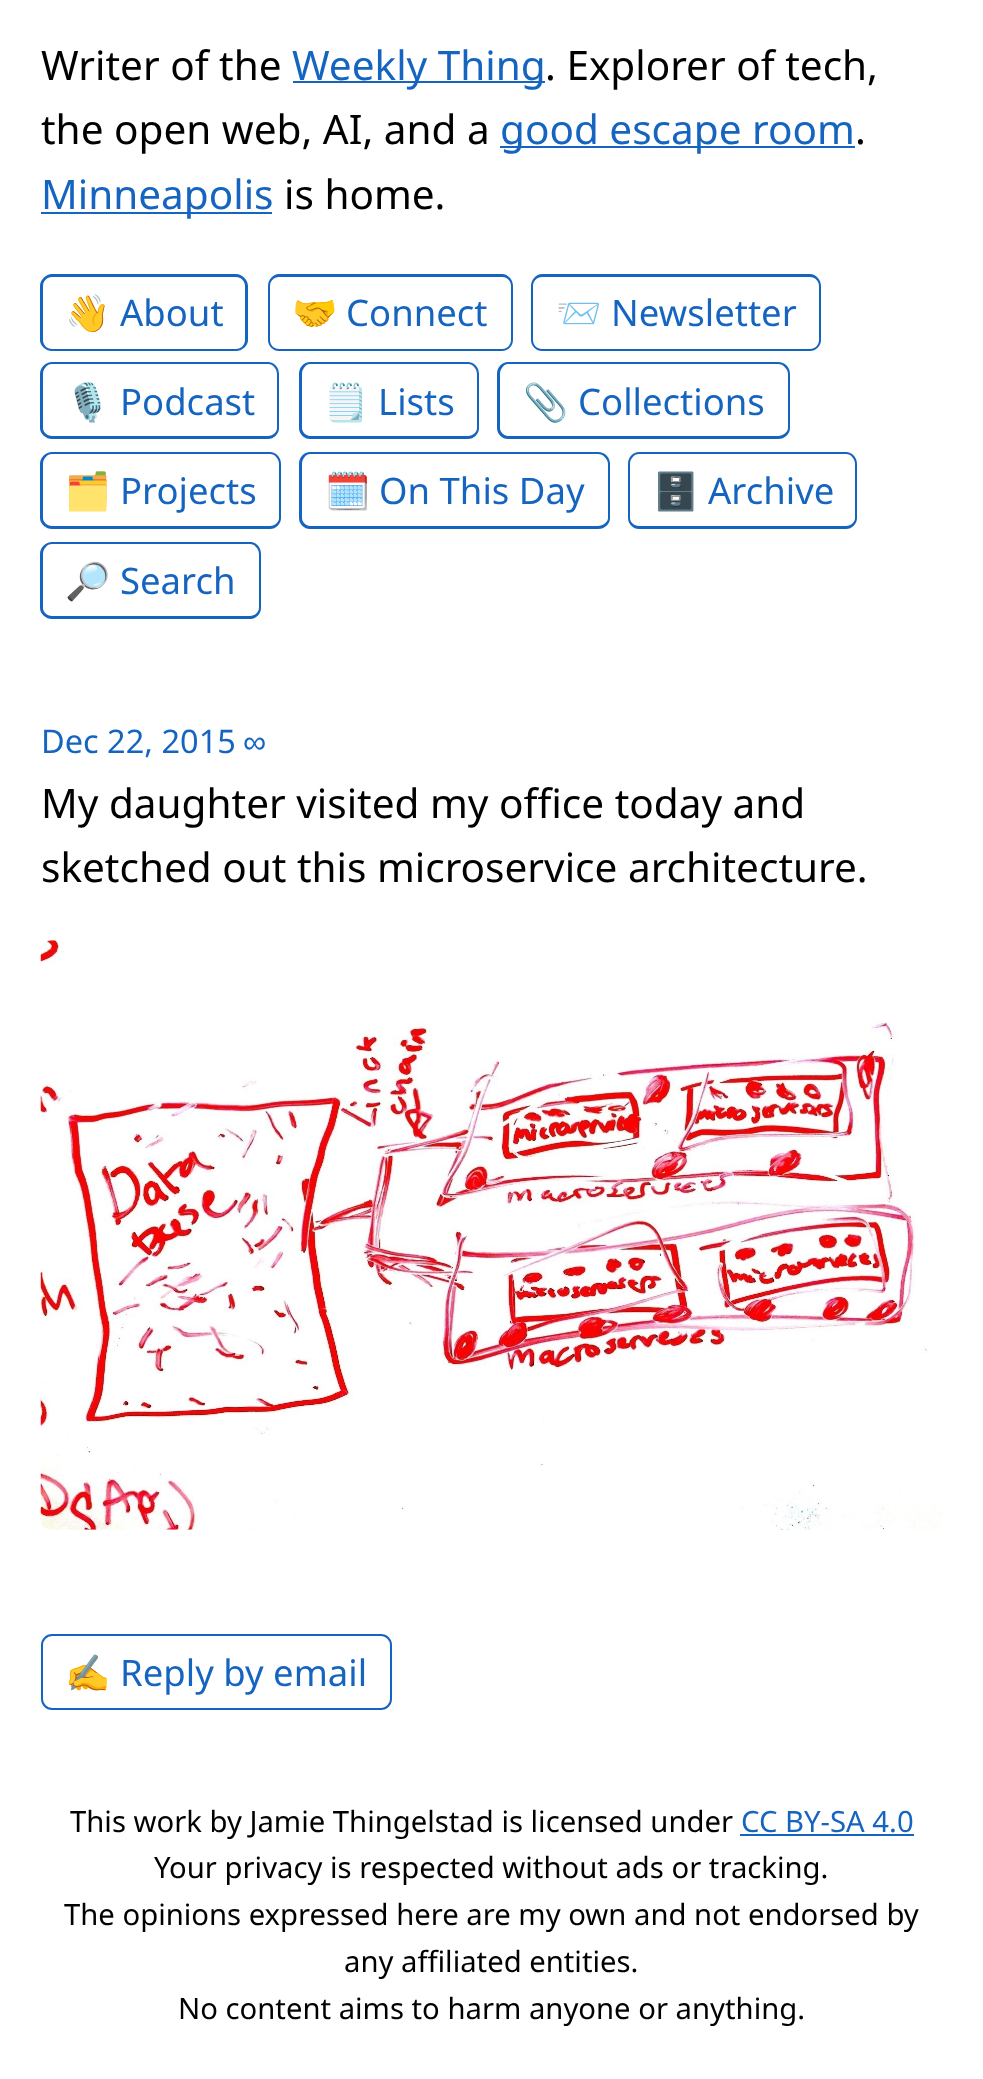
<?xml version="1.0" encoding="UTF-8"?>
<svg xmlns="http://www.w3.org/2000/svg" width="983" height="2079">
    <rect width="100%" height="100%" fill="#FFFFFF"/>
    <text x="41" y="80" font-family="Noto Sans" font-size="40.5" fill="#000000">Writer of the</text>
    <rect x="293" y="81" width="252" height="2" fill="#1565C0"/>
    <text x="292" y="80" font-family="Noto Sans" font-size="40.5" fill="#1565C0">Weekly Thing</text>
    <text x="545" y="80" font-family="Noto Sans" font-size="40.5" fill="#000000">. Explorer of tech,</text>
    <text x="41" y="144" font-family="Noto Sans" font-size="40.5" fill="#000000">the open web, AI, and a</text>
    <rect x="500" y="146" width="355" height="2" fill="#1565C0"/>
    <text x="500" y="144" font-family="Noto Sans" font-size="40.5" fill="#1565C0">good escape room</text>
    <text x="855" y="144" font-family="Noto Sans" font-size="40.5" fill="#000000">.</text>
    <rect x="41" y="212" width="231" height="2" fill="#1565C0"/>
    <text x="41" y="209" font-family="Noto Sans" font-size="40.5" fill="#1565C0">Minneapolis</text>
    <text x="284" y="209" font-family="Noto Sans" font-size="40.5" fill="#000000">is home.</text>
    <path d="M 52 274 H 119 V 351 H 52 C 46 351 40 346 40 340 V 286 C 40 280 46 274 52 274 Z M 52 277 H 119 V 349 H 52 C 47 349 43 345 43 340 V 286 C 43 281 47 277 52 277 Z" fill="#1565C0" fill-rule="evenodd"/>
    <text x="65" y="326" font-family="Noto Color Emoji" font-size="36.5" fill="#1565C0">👋</text>
    <path d="M 119 274 H 236 C 242 274 248 280 248 286 V 340 C 248 346 242 351 236 351 H 119 Z M 119 277 H 236 C 241 277 245 281 245 286 V 340 C 245 345 241 349 236 349 H 119 Z" fill="#1565C0" fill-rule="evenodd"/>
    <text x="120" y="326" font-family="Noto Sans" font-size="36.5" fill="#1565C0">About</text>
    <path d="M 279 274 H 346 V 351 H 279 C 273 351 268 346 268 340 V 286 C 268 280 273 274 279 274 Z M 279 277 H 346 V 349 H 279 C 274 349 270 345 270 340 V 286 C 270 281 274 277 279 277 Z" fill="#1565C0" fill-rule="evenodd"/>
    <text x="292" y="326" font-family="Noto Color Emoji" font-size="36.5" fill="#1565C0">🤝</text>
    <path d="M 346 274 H 502 C 508 274 513 280 513 286 V 340 C 513 346 508 351 502 351 H 346 Z M 346 277 H 502 C 507 277 511 281 511 286 V 340 C 511 345 507 349 502 349 H 346 Z" fill="#1565C0" fill-rule="evenodd"/>
    <text x="346" y="326" font-family="Noto Sans" font-size="36.5" fill="#1565C0">Connect</text>
    <path d="M 542 274 H 610 V 351 H 542 C 536 351 531 346 531 340 V 286 C 531 280 536 274 542 274 Z M 542 277 H 610 V 349 H 542 C 537 349 533 345 533 340 V 286 C 533 281 537 277 542 277 Z" fill="#1565C0" fill-rule="evenodd"/>
    <text x="556" y="326" font-family="Noto Color Emoji" font-size="36.5" fill="#1565C0">📨</text>
    <path d="M 610 274 H 810 C 816 274 821 280 821 286 V 340 C 821 346 816 351 810 351 H 610 Z M 610 277 H 810 C 815 277 819 281 819 286 V 340 C 819 345 815 349 810 349 H 610 Z" fill="#1565C0" fill-rule="evenodd"/>
    <text x="611" y="326" font-family="Noto Sans" font-size="36.5" fill="#1565C0">Newsletter</text>
    <path d="M 52 362 H 119 V 439 H 52 C 46 439 40 434 40 428 V 374 C 40 367 46 362 52 362 Z M 52 364 H 119 V 436 H 52 C 47 436 43 432 43 428 V 374 C 43 369 47 364 52 364 Z" fill="#1565C0" fill-rule="evenodd"/>
    <text x="65" y="415" font-family="Noto Color Emoji" font-size="36.5" fill="#1565C0">🎙️</text>
    <path d="M 119 362 H 268 C 274 362 279 367 279 374 V 428 C 279 434 274 439 268 439 H 119 Z M 119 364 H 268 C 273 364 277 369 277 374 V 428 C 277 432 273 436 268 436 H 119 Z" fill="#1565C0" fill-rule="evenodd"/>
    <text x="120" y="415" font-family="Noto Sans" font-size="36.5" fill="#1565C0">Podcast</text>
    <path d="M 310 362 H 378 V 439 H 310 C 304 439 299 434 299 428 V 374 C 299 367 304 362 310 362 Z M 310 364 H 378 V 436 H 310 C 306 436 302 432 302 428 V 374 C 302 369 306 364 310 364 Z" fill="#1565C0" fill-rule="evenodd"/>
    <text x="323" y="415" font-family="Noto Color Emoji" font-size="36.5" fill="#1565C0">🗒️</text>
    <path d="M 378 362 H 468 C 474 362 479 367 479 374 V 428 C 479 434 474 439 468 439 H 378 Z M 378 364 H 468 C 473 364 477 369 477 374 V 428 C 477 432 473 436 468 436 H 378 Z" fill="#1565C0" fill-rule="evenodd"/>
    <text x="378" y="415" font-family="Noto Sans" font-size="36.5" fill="#1565C0">Lists</text>
    <path d="M 508 362 H 578 V 439 H 508 C 502 439 497 434 497 428 V 374 C 497 367 502 362 508 362 Z M 508 364 H 578 V 436 H 508 C 504 436 500 432 500 428 V 374 C 500 369 504 364 508 364 Z" fill="#1565C0" fill-rule="evenodd"/>
    <text x="523" y="415" font-family="Noto Color Emoji" font-size="36.5" fill="#1565C0">📎</text>
    <path d="M 578 362 H 778 C 785 362 790 367 790 374 V 428 C 790 434 785 439 778 439 H 578 Z M 578 364 H 778 C 783 364 788 369 788 374 V 428 C 788 432 783 436 778 436 H 578 Z" fill="#1565C0" fill-rule="evenodd"/>
    <text x="578" y="415" font-family="Noto Sans" font-size="36.5" fill="#1565C0">Collections</text>
    <path d="M 52 452 H 119 V 529 H 52 C 46 529 40 524 40 518 V 464 C 40 457 46 452 52 452 Z M 52 454 H 119 V 526 H 52 C 47 526 43 522 43 518 V 464 C 43 459 47 454 52 454 Z" fill="#1565C0" fill-rule="evenodd"/>
    <text x="65" y="504" font-family="Noto Color Emoji" font-size="36.5" fill="#1565C0">🗂️</text>
    <path d="M 119 452 H 270 C 276 452 281 457 281 464 V 518 C 281 524 276 529 270 529 H 119 Z M 119 454 H 270 C 275 454 279 459 279 464 V 518 C 279 522 275 526 270 526 H 119 Z" fill="#1565C0" fill-rule="evenodd"/>
    <text x="120" y="504" font-family="Noto Sans" font-size="36.5" fill="#1565C0">Projects</text>
    <path d="M 310 452 H 380 V 529 H 310 C 304 529 299 524 299 518 V 464 C 299 457 304 452 310 452 Z M 310 454 H 380 V 526 H 310 C 306 526 302 522 302 518 V 464 C 302 459 306 454 310 454 Z" fill="#1565C0" fill-rule="evenodd"/>
    <text x="325" y="504" font-family="Noto Color Emoji" font-size="36.5" fill="#1565C0">🗓️</text>
    <path d="M 380 452 H 598 C 605 452 610 457 610 464 V 518 C 610 524 605 529 598 529 H 380 Z M 380 454 H 598 C 603 454 608 459 608 464 V 518 C 608 522 603 526 598 526 H 380 Z" fill="#1565C0" fill-rule="evenodd"/>
    <text x="379" y="504" font-family="Noto Sans" font-size="36.5" fill="#1565C0">On This Day</text>
    <path d="M 639 452 H 706 V 529 H 639 C 633 529 628 524 628 518 V 464 C 628 457 633 452 639 452 Z M 639 454 H 706 V 526 H 639 C 634 526 630 522 630 518 V 464 C 630 459 634 454 639 454 Z" fill="#1565C0" fill-rule="evenodd"/>
    <text x="653" y="504" font-family="Noto Color Emoji" font-size="36.5" fill="#1565C0">🗄️</text>
    <path d="M 706 452 H 846 C 852 452 857 457 857 464 V 518 C 857 524 852 529 846 529 H 706 Z M 706 454 H 846 C 851 454 855 459 855 464 V 518 C 855 522 851 526 846 526 H 706 Z" fill="#1565C0" fill-rule="evenodd"/>
    <text x="708" y="504" font-family="Noto Sans" font-size="36.5" fill="#1565C0">Archive</text>
    <path d="M 52 542 H 119 V 619 H 52 C 46 619 40 614 40 608 V 554 C 40 547 46 542 52 542 Z M 52 544 H 119 V 616 H 52 C 47 616 43 612 43 608 V 554 C 43 549 47 544 52 544 Z" fill="#1565C0" fill-rule="evenodd"/>
    <text x="65" y="594" font-family="Noto Color Emoji" font-size="36.5" fill="#1565C0">🔎</text>
    <path d="M 119 542 H 250 C 256 542 261 547 261 554 V 608 C 261 614 256 619 250 619 H 119 Z M 119 544 H 250 C 255 544 259 549 259 554 V 608 C 259 612 255 616 250 616 H 119 Z" fill="#1565C0" fill-rule="evenodd"/>
    <text x="120" y="594" font-family="Noto Sans" font-size="36.5" fill="#1565C0">Search</text>
    <text x="41" y="753" font-family="Noto Sans" font-size="32.5" fill="#1565C0">Dec 22, 2015</text>
    <text x="243" y="753" font-family="Liberation Sans" font-size="32.5" fill="#1565C0">∞</text>
    <text font-family="Noto Sans" font-size="40.5" fill="#000000">
        <tspan x="41" y="818">My daughter visited my office today and</tspan>
        <tspan x="41" y="882">sketched out this microservice architecture.</tspan>
    </text>
    <image x="40" y="940" width="903" height="590" href="img_01.png"/>
    <rect x="42" y="1635" width="349" height="74" rx="10" fill="none" stroke="#1565C0" stroke-width="2"/>
    <text x="65" y="1686" font-family="Noto Color Emoji" font-size="36.5" fill="#1565C0">✍️</text>
    <text x="120" y="1686" font-family="Noto Sans" font-size="36.5" fill="#1565C0">Reply by email</text>
    <text x="70" y="1832" font-family="Noto Sans" font-size="29.25" fill="#000000">This work by Jamie Thingelstad is licensed under</text>
    <text x="741" y="1832" font-family="Noto Sans" font-size="29.25" fill="#1565C0">CC BY-SA 4.0</text>
    <rect x="740" y="1834" width="174" height="2" fill="#1565C0"/>
    <text x="154" y="1878" font-family="Noto Sans" font-size="29.25" fill="#000000">Your privacy is respected without ads or tracking.</text>
    <text x="64" y="1925" font-family="Noto Sans" font-size="29.25" fill="#000000">The opinions expressed here are my own and not endorsed by</text>
    <text x="344" y="1972" font-family="Noto Sans" font-size="29.25" fill="#000000">any affiliated entities.</text>
    <text x="178" y="2019" font-family="Noto Sans" font-size="29.25" fill="#000000">No content aims to harm anyone or anything.</text>
</svg>
